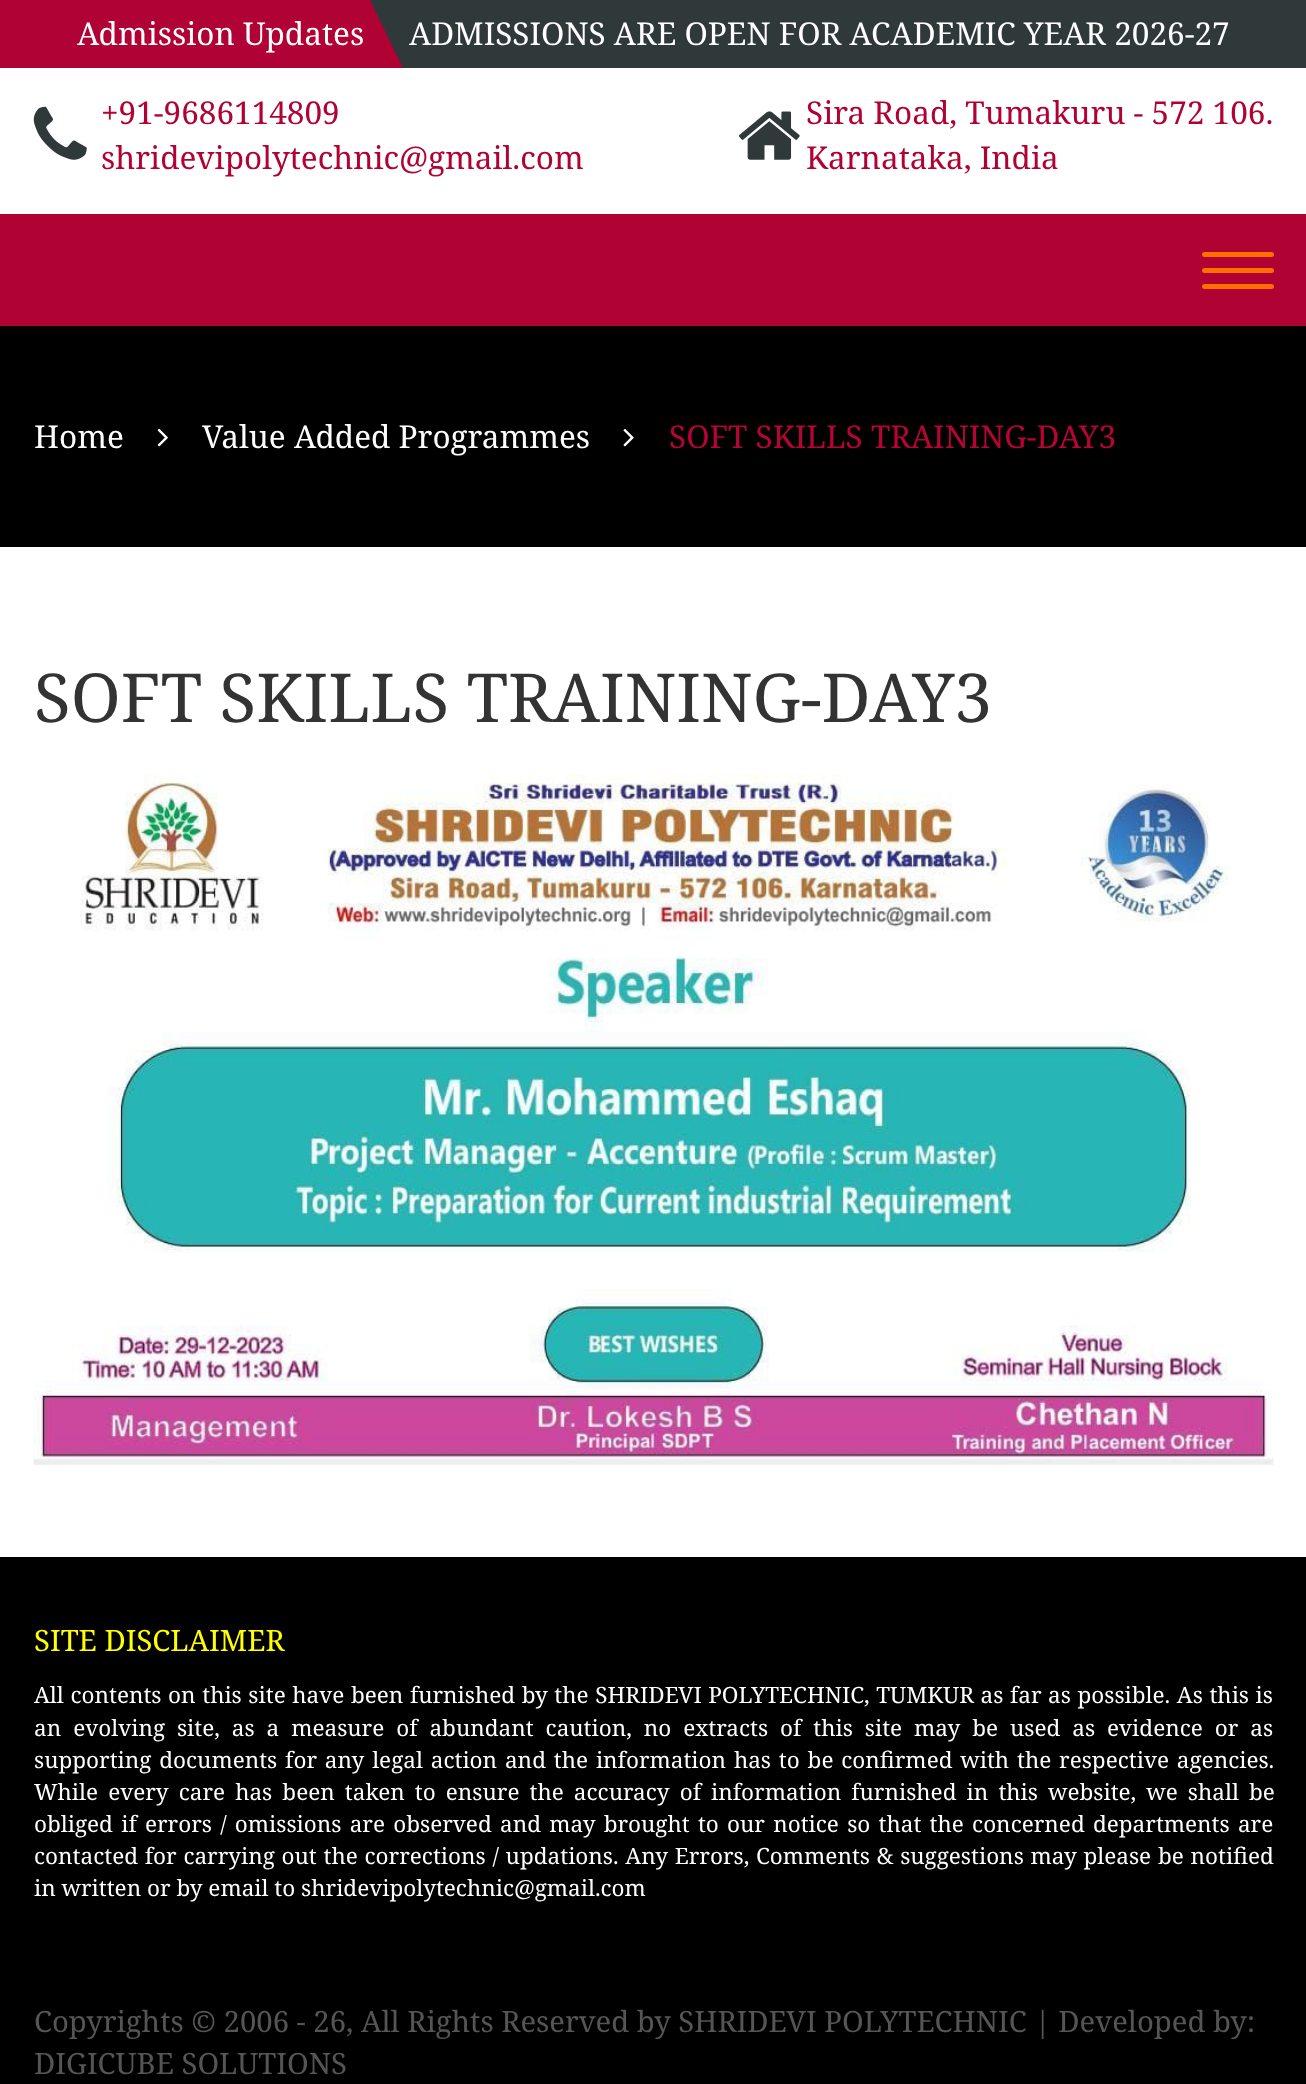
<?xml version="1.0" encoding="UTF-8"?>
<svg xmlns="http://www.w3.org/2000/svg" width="1306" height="2084">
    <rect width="100%" height="100%" fill="#FFFFFF"/>
    <rect x="370" y="0" width="936" height="68" fill="#30393A"/>
    <path d="M -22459 0 H 370 L 403 68 H -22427 Z" fill="#B00234"/>
    <text x="77" y="45" font-family="Noto Serif" font-size="31.5" fill="#FFFFFF">Admission Updates</text>
    <text x="409" y="45" font-family="Noto Serif" font-size="31.5" fill="#FFFFFF">ADMISSIONS ARE OPEN FOR ACADEMIC YEAR 2026-27</text>
    <image x="33" y="106" width="54" height="54" href="img_01.png"/>
    <text font-family="Noto Serif" font-size="31.5" fill="#B00234">
        <tspan x="101" y="124">+91-9686114809</tspan>
        <tspan x="101" y="169">shridevipolytechnic@gmail.com</tspan>
    </text>
    <image x="739" y="111" width="61" height="49" href="img_02.png"/>
    <text font-family="Noto Serif" font-size="31.5" fill="#B00234">
        <tspan x="806" y="124">Sira Road, Tumakuru - 572 106.</tspan>
        <tspan x="806" y="169">Karnataka, India</tspan>
    </text>
    <rect x="0" y="214" width="1306" height="112" fill="#B00233"/>
    <rect x="1202" y="252" width="72" height="5" rx="2.5" fill="#FF6F00"/>
    <rect x="1202" y="268" width="72" height="5" rx="2.5" fill="#FF6F00"/>
    <rect x="1202" y="284" width="72" height="5" rx="2.5" fill="#FF6F00"/>
    <rect x="0" y="326" width="1306" height="221" fill="#000000"/>
    <text x="34" y="448" font-family="Noto Serif" font-size="31.5" fill="#FFFFFF">Home</text>
    <image x="157" y="428" width="11" height="19" href="img_03.png"/>
    <text x="202" y="448" font-family="Noto Serif" font-size="31.5" fill="#FFFFFF">Value Added Programmes</text>
    <image x="623" y="428" width="11" height="19" href="img_04.png"/>
    <text x="669" y="448" font-family="Noto Serif" font-size="31.5" fill="#B80434">SOFT SKILLS TRAINING-DAY3</text>
    <text x="34" y="722" font-family="Noto Serif" font-size="67.5" fill="#333333">SOFT SKILLS TRAINING-DAY3</text>
    <image x="33" y="773" width="1241" height="692" href="img_05.png"/>
    <rect x="0" y="1557" width="1306" height="527" fill="#000000"/>
    <text x="34" y="1651" font-family="Noto Serif" font-size="29.25" fill="#FFFF00">SITE DISCLAIMER</text>
    <text font-family="Noto Serif" font-size="22.5" fill="#FFFFFF">
        <tspan x="34" y="1703" word-spacing="0.75">All contents on this site have been furnished by the SHRIDEVI POLYTECHNIC, TUMKUR as far as possible. As this is</tspan>
        <tspan x="34" y="1736" word-spacing="6.1">an evolving site, as a measure of abundant caution, no extracts of this site may be used as evidence or as</tspan>
        <tspan x="34" y="1768" word-spacing="2">supporting documents for any legal action and the information has to be confirmed with the respective agencies.</tspan>
        <tspan x="34" y="1800" word-spacing="4.25">While every care has been taken to ensure the accuracy of information furnished in this website, we shall be</tspan>
        <tspan x="34" y="1832" word-spacing="2.4">obliged if errors / omissions are observed and may brought to our notice so that the concerned departments are</tspan>
        <tspan x="34" y="1864" word-spacing="0.9">contacted for carrying out the corrections / updations. Any Errors, Comments &amp; suggestions may please be notified</tspan>
        <tspan x="34" y="1896">in written or by email to shridevipolytechnic@gmail.com</tspan>
    </text>
    <text font-family="Noto Serif" font-size="29.25" fill="#555555">
        <tspan x="34" y="2032">Copyrights © 2006 - 26, All Rights Reserved by SHRIDEVI POLYTECHNIC | Developed by:</tspan>
        <tspan x="34" y="2074">DIGICUBE SOLUTIONS</tspan>
    </text>
</svg>
